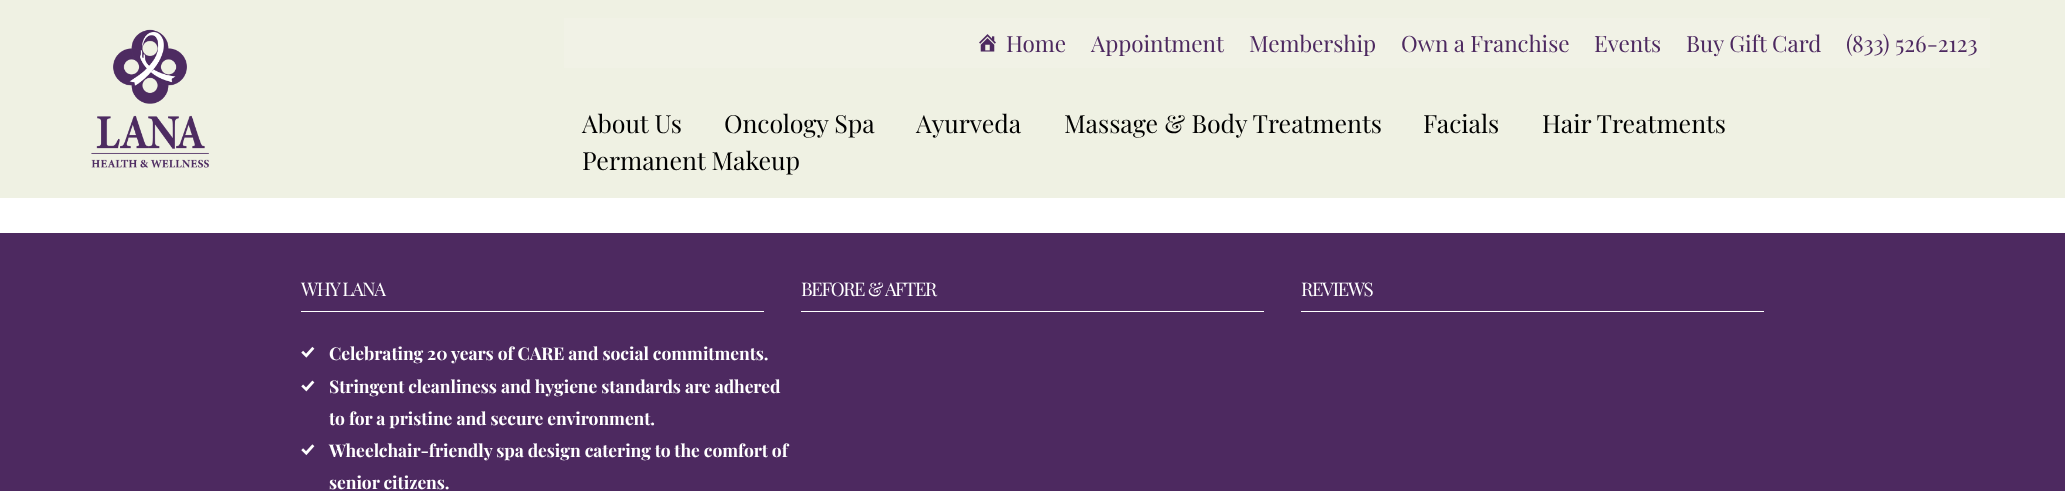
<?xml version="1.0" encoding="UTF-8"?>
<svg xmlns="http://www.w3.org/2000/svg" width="2065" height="491">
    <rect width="100%" height="100%" fill="#FFFFFF"/>
    <rect x="0" y="0" width="2065" height="198" fill="#EFF1E3"/>
    <image x="91" y="29" width="118" height="139" href="img_01.png"/>
    <rect x="564" y="18" width="1426" height="50" fill="#F1F2E6"/>
    <image x="979" y="34" width="17" height="18" href="img_02.png"/>
    <text x="1006" y="52" font-family="Playfair Display" font-size="22.5" letter-spacing="-0.05" fill="#4D2960">Home</text>
    <text x="1091" y="52" font-family="Playfair Display" font-size="22.5" letter-spacing="-0.05" fill="#4D2960">Appointment</text>
    <text x="1249" y="52" font-family="Playfair Display" font-size="22.5" letter-spacing="-0.05" fill="#4D2960">Membership</text>
    <text x="1401" y="52" font-family="Playfair Display" font-size="22.5" letter-spacing="-0.05" fill="#4D2960">Own a Franchise</text>
    <text x="1594" y="52" font-family="Playfair Display" font-size="22.5" letter-spacing="-0.05" fill="#4D2960">Events</text>
    <text x="1686" y="52" font-family="Playfair Display" font-size="22.5" letter-spacing="-0.05" fill="#4D2960">Buy Gift Card</text>
    <text x="1846" y="52" font-family="Playfair Display" font-size="22.5" letter-spacing="-0.05" fill="#4D2960">(833) 526-2123</text>
    <text x="582" y="133" font-family="Playfair Display" font-size="25" letter-spacing="-0.05" fill="#000000">About Us</text>
    <text x="724" y="133" font-family="Playfair Display" font-size="25" letter-spacing="-0.05" fill="#000000">Oncology Spa</text>
    <text x="916" y="133" font-family="Playfair Display" font-size="25" letter-spacing="-0.05" fill="#000000">Ayurveda</text>
    <text x="1064" y="133" font-family="Playfair Display" font-size="25" letter-spacing="-0.05" fill="#000000">Massage &amp; Body Treatments</text>
    <text x="1423" y="133" font-family="Playfair Display" font-size="25" letter-spacing="-0.05" fill="#000000">Facials</text>
    <text x="1542" y="133" font-family="Playfair Display" font-size="25" letter-spacing="-0.05" fill="#000000">Hair Treatments</text>
    <text x="582" y="170" font-family="Playfair Display" font-size="25" letter-spacing="-0.05" fill="#000000">Permanent Makeup</text>
    <rect x="0" y="233" width="2065" height="258" fill="#4D2960"/>
    <rect x="301" y="311" width="463" height="1" fill="#FFFFFF"/>
    <text x="301" y="296" font-family="Playfair Display" font-size="18.75" letter-spacing="-1.25" fill="#FFFFFF">WHY LANA</text>
    <image x="301" y="346" width="14" height="12" href="img_03.png"/>
    <text x="329" y="360" font-family="Playfair Display" font-size="17.5" font-weight="700" letter-spacing="-0.05" fill="#FFFFFF">Celebrating 20 years of CARE and social commitments.</text>
    <image x="301" y="380" width="14" height="12" href="img_04.png"/>
    <text font-family="Playfair Display" font-size="17.5" font-weight="700" letter-spacing="-0.05" fill="#FFFFFF">
        <tspan x="329" y="393">Stringent cleanliness and hygiene standards are adhered</tspan>
        <tspan x="329" y="425">to for a pristine and secure environment.</tspan>
    </text>
    <image x="301" y="444" width="14" height="12" href="img_05.png"/>
    <text font-family="Playfair Display" font-size="17.5" font-weight="700" letter-spacing="-0.05" fill="#FFFFFF">
        <tspan x="329" y="457">Wheelchair-friendly spa design catering to the comfort of</tspan>
        <tspan x="329" y="489">senior citizens.</tspan>
    </text>
    <rect x="801" y="311" width="463" height="1" fill="#FFFFFF"/>
    <text x="801" y="296" font-family="Playfair Display" font-size="18.75" letter-spacing="-1.25" fill="#FFFFFF">BEFORE &amp; AFTER</text>
    <rect x="1301" y="311" width="463" height="1" fill="#FFFFFF"/>
    <text x="1301" y="296" font-family="Playfair Display" font-size="18.75" letter-spacing="-1.25" fill="#FFFFFF">REVIEWS</text>
</svg>
